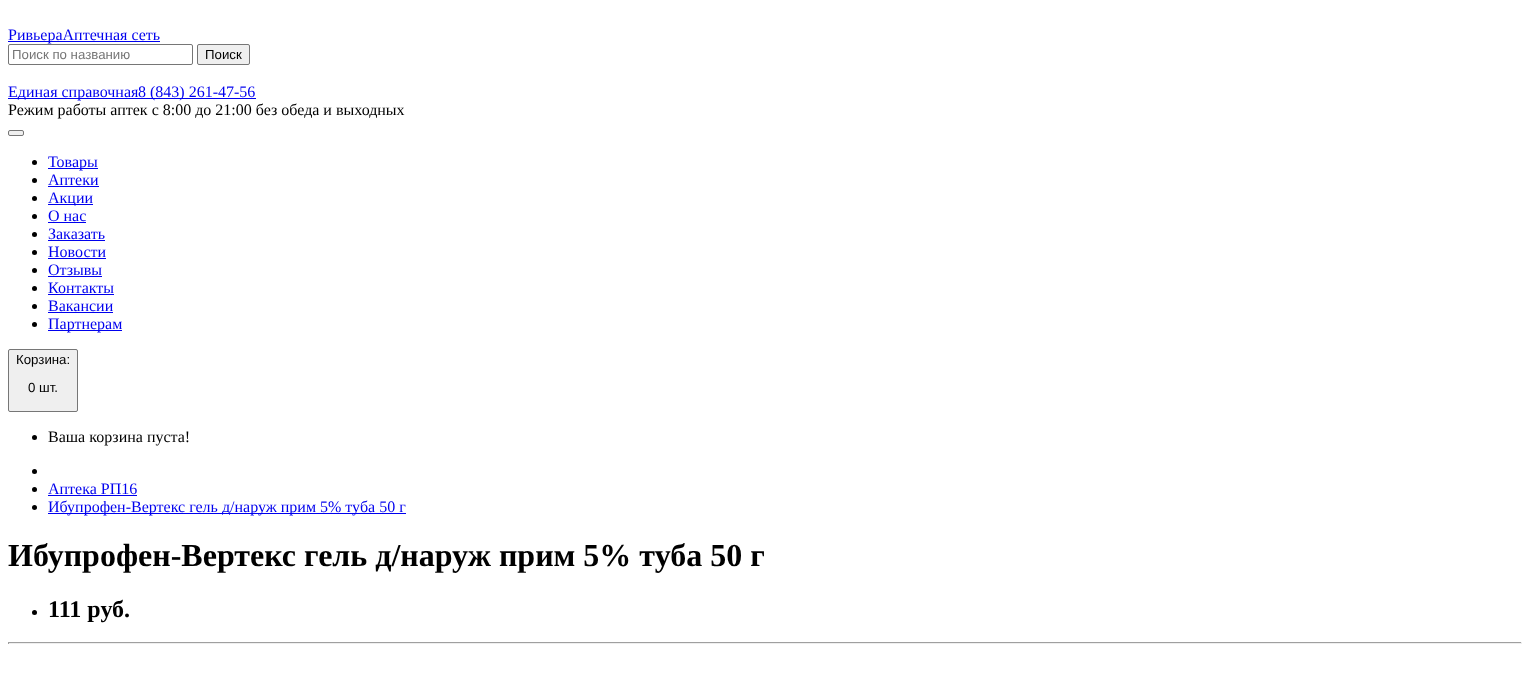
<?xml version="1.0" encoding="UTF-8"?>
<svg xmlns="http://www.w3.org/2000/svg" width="1530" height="676">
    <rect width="100%" height="100%" fill="#FFFFFF"/>
    <rect x="8" y="41" width="152" height="1" fill="#0000EE"/>
    <text x="8" y="40" font-family="Liberation Serif" font-size="16" fill="#0000EE">РивьераАптечная сеть</text>
    <rect x="8.5" y="44.5" width="184" height="20" rx="1.5" fill="none" stroke="#767676"/>
    <text x="12" y="59" font-family="Liberation Sans" font-size="13.25" fill="#757575">Поиск по названию</text>
    <rect x="197.5" y="44.5" width="52" height="20" rx="1.5" fill="#EFEFEF" stroke="#767676"/>
    <text x="205" y="59" font-family="Liberation Sans" font-size="13.25" fill="#000000">Поиск</text>
    <rect x="8" y="98" width="130" height="1" fill="#0000EE"/>
    <text x="8" y="97" font-family="Liberation Serif" font-size="16" fill="#0000EE">Единая справочная</text>
    <rect x="138" y="98" width="118" height="1" fill="#0000EE"/>
    <text x="138" y="97" font-family="Liberation Serif" font-size="16" fill="#0000EE">8 (843) 261-47-56</text>
    <text x="8" y="115" font-family="Liberation Serif" font-size="16" fill="#000000">Режим работы аптек с 8:00 до 21:00 без обеда и выходных</text>
    <rect x="8.5" y="130.5" width="15" height="5" rx="1.5" fill="#EFEFEF" stroke="#767676"/>
    <circle cx="34.5" cy="162.5" r="2.5" fill="#000000"/>
    <rect x="48" y="168" width="50" height="1" fill="#0000EE"/>
    <text x="48" y="167" font-family="Liberation Serif" font-size="16" fill="#0000EE">Товары</text>
    <circle cx="34.5" cy="180.5" r="2.5" fill="#000000"/>
    <text x="48" y="185" font-family="Liberation Serif" font-size="16" fill="#0000EE">Аптеки</text>
    <rect x="48" y="186" width="51" height="1" fill="#0000EE"/>
    <circle cx="34.5" cy="198.5" r="2.5" fill="#000000"/>
    <rect x="48" y="204" width="45" height="1" fill="#0000EE"/>
    <text x="48" y="203" font-family="Liberation Serif" font-size="16" fill="#0000EE">Акции</text>
    <circle cx="34.5" cy="216.5" r="2.5" fill="#000000"/>
    <text x="48" y="221" font-family="Liberation Serif" font-size="16" fill="#0000EE">О нас</text>
    <rect x="48" y="222" width="38" height="1" fill="#0000EE"/>
    <circle cx="34.5" cy="234.5" r="2.5" fill="#000000"/>
    <text x="48" y="239" font-family="Liberation Serif" font-size="16" fill="#0000EE">Заказать</text>
    <rect x="48" y="240" width="57" height="1" fill="#0000EE"/>
    <circle cx="34.5" cy="252.5" r="2.5" fill="#000000"/>
    <text x="48" y="257" font-family="Liberation Serif" font-size="16" fill="#0000EE">Новости</text>
    <rect x="48" y="258" width="58" height="1" fill="#0000EE"/>
    <circle cx="34.5" cy="270.5" r="2.5" fill="#000000"/>
    <text x="48" y="275" font-family="Liberation Serif" font-size="16" fill="#0000EE">Отзывы</text>
    <rect x="48" y="276" width="54" height="1" fill="#0000EE"/>
    <circle cx="34.5" cy="288.5" r="2.5" fill="#000000"/>
    <text x="48" y="293" font-family="Liberation Serif" font-size="16" fill="#0000EE">Контакты</text>
    <rect x="48" y="294" width="66" height="1" fill="#0000EE"/>
    <circle cx="34.5" cy="306.5" r="2.5" fill="#000000"/>
    <text x="48" y="311" font-family="Liberation Serif" font-size="16" fill="#0000EE">Вакансии</text>
    <rect x="48" y="312" width="65" height="1" fill="#0000EE"/>
    <circle cx="34.5" cy="324.5" r="2.5" fill="#000000"/>
    <rect x="48" y="330" width="74" height="1" fill="#0000EE"/>
    <text x="48" y="329" font-family="Liberation Serif" font-size="16" fill="#0000EE">Партнерам</text>
    <rect x="8.5" y="349.5" width="69" height="62" rx="1.5" fill="#EFEFEF" stroke="#767676"/>
    <text x="16" y="364" font-family="Liberation Sans" font-size="13.25" fill="#000000">Корзина:</text>
    <text x="28" y="392" font-family="Liberation Sans" font-size="13.25" fill="#000000">0 шт.</text>
    <circle cx="34.5" cy="437.5" r="2.5" fill="#000000"/>
    <text x="48" y="442" font-family="Liberation Serif" font-size="16" fill="#000000">Ваша корзина пуста!</text>
    <circle cx="34.5" cy="471.5" r="2.5" fill="#000000"/>
    <circle cx="34.5" cy="489.5" r="2.5" fill="#000000"/>
    <text x="48" y="494" font-family="Liberation Serif" font-size="16" fill="#0000EE">Аптека РП16</text>
    <rect x="48" y="495" width="89" height="1" fill="#0000EE"/>
    <circle cx="34.5" cy="507.5" r="2.5" fill="#000000"/>
    <rect x="48" y="513" width="358" height="1" fill="#0000EE"/>
    <text x="48" y="512" font-family="Liberation Serif" font-size="16" fill="#0000EE">Ибупрофен-Вертекс гель д/наруж прим 5% туба 50 г</text>
    <text x="8" y="566" font-family="Liberation Serif" font-size="32" font-weight="700" fill="#000000">Ибупрофен-Вертекс гель д/наруж прим 5% туба 50 г</text>
    <circle cx="34.5" cy="612.5" r="2.5" fill="#000000"/>
    <text x="48" y="617" font-family="Liberation Serif" font-size="24" font-weight="700" fill="#000000">111 руб.</text>
    <rect x="8" y="642" width="1514" height="1" fill="#9F9F9F"/>
    <rect x="1521" y="642" width="1" height="2" fill="#EEEEEE"/>
    <rect x="8" y="643" width="1514" height="1" fill="#EEEEEE"/>
    <rect x="8" y="642" width="1" height="2" fill="#9F9F9F"/>
</svg>
